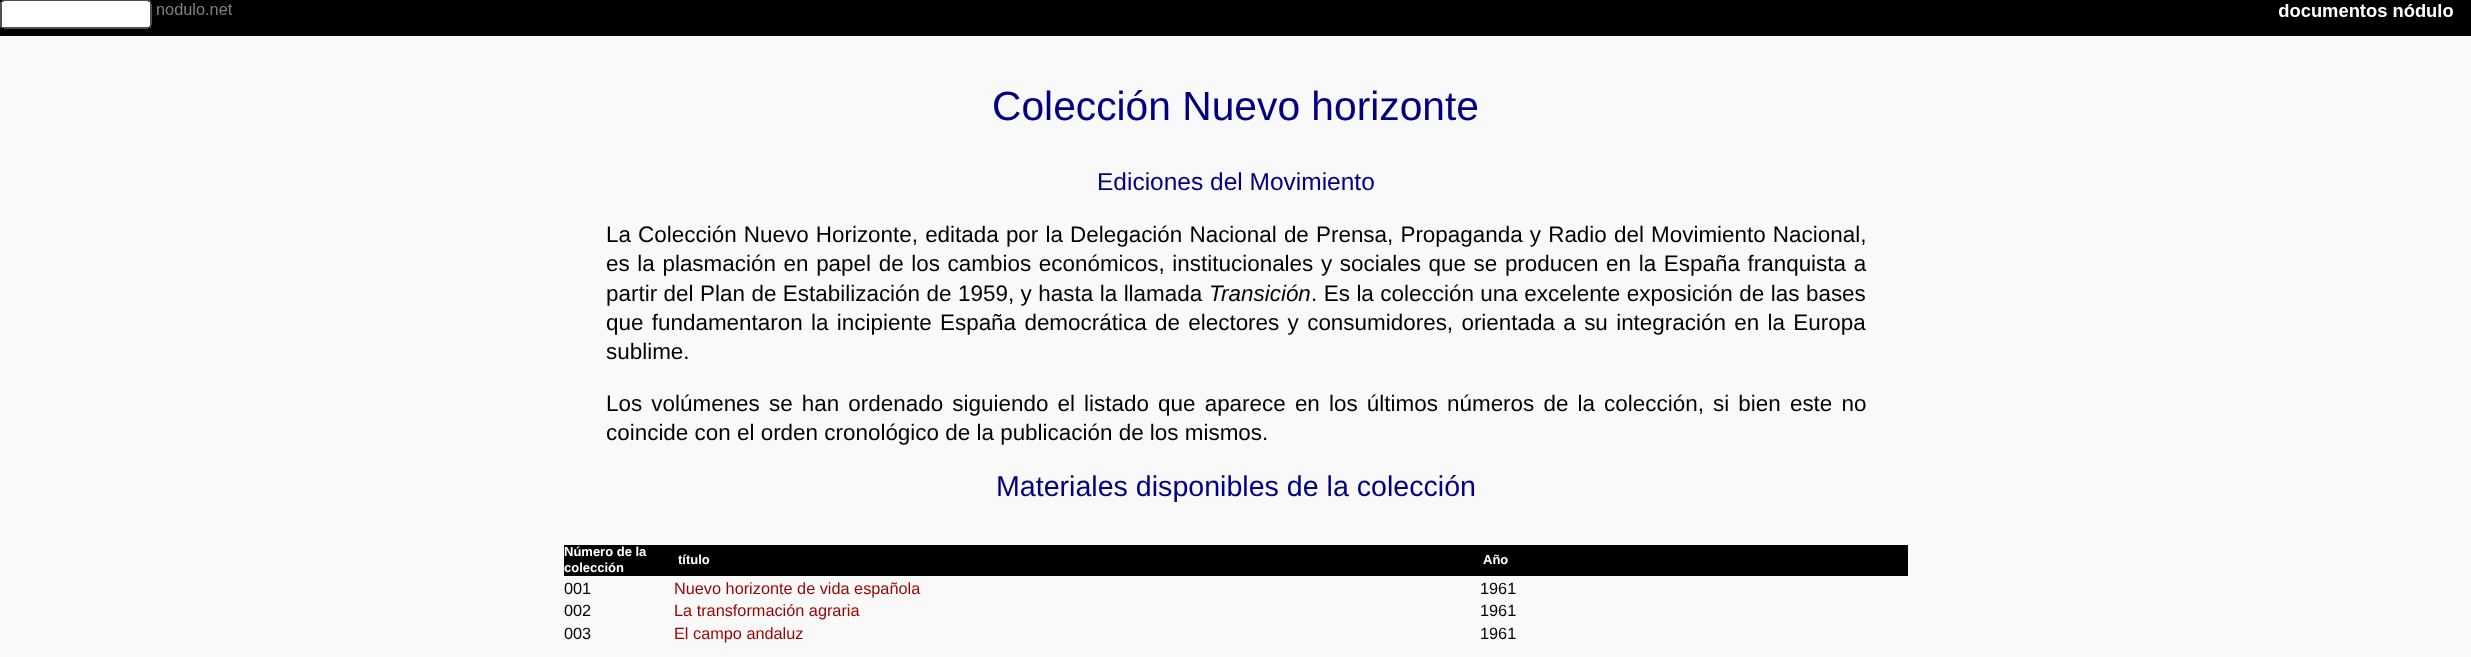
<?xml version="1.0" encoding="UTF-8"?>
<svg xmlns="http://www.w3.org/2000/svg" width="2471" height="657">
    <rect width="100%" height="100%" fill="#F9F9F9"/>
    <image x="0" y="0" width="2471" height="36" href="img_01.png"/>
    <text x="992" y="120" font-family="Liberation Sans" font-size="40.75" fill="#000080">Colección Nuevo horizonte</text>
    <text x="1097" y="190" font-family="Liberation Sans" font-size="24.5" fill="#000080">Ediciones del Movimiento</text>
    <text font-family="Liberation Sans" font-size="22.45" fill="#000000">
        <tspan x="606" y="242" word-spacing="0.9">La Colección Nuevo Horizonte, editada por la Delegación Nacional de Prensa, Propaganda y Radio del Movimiento Nacional,</tspan>
        <tspan x="606" y="271" word-spacing="1.4">es la plasmación en papel de los cambios económicos, institucionales y sociales que se producen en la España franquista a</tspan>
        <tspan x="606" y="301" word-spacing="0.25">partir del Plan de Estabilización de 1959, y hasta la llamada</tspan>
    </text>
    <text x="1209" y="301" font-family="Liberation Sans" font-size="22.45" font-style="italic" fill="#000000">Transición</text>
    <text x="1311" y="301" word-spacing="0.25" font-family="Liberation Sans" font-size="22.45" fill="#000000">. Es la colección una excelente exposición de las bases</text>
    <text font-family="Liberation Sans" font-size="22.45" fill="#000000">
        <tspan x="606" y="330" word-spacing="2.1">que fundamentaron la incipiente España democrática de electores y consumidores, orientada a su integración en la Europa</tspan>
        <tspan x="606" y="359">sublime.</tspan>
    </text>
    <text font-family="Liberation Sans" font-size="22.45" fill="#000000">
        <tspan x="606" y="411" word-spacing="2.9">Los volúmenes se han ordenado siguiendo el listado que aparece en los últimos números de la colección, si bien este no</tspan>
        <tspan x="606" y="440">coincide con el orden cronológico de la publicación de los mismos.</tspan>
    </text>
    <text x="996" y="496" font-family="Liberation Sans" font-size="28.6" fill="#000080">Materiales disponibles de la colección</text>
    <rect x="564" y="545" width="1344" height="31" fill="#000000"/>
    <text font-family="Liberation Sans" font-size="13" font-weight="700" fill="#FFFFFF">
        <tspan x="564" y="556">Número de la</tspan>
        <tspan x="564" y="572">colección</tspan>
    </text>
    <text x="678" y="564" font-family="Liberation Sans" font-size="13" font-weight="700" fill="#FFFFFF">título</text>
    <text x="1483" y="564" font-family="Liberation Sans" font-size="13" font-weight="700" fill="#FFFFFF">Año</text>
    <text x="564" y="594" font-family="Liberation Sans" font-size="16.3" fill="#000000">001</text>
    <text x="674" y="594" font-family="Liberation Sans" font-size="16.3" fill="#990000">Nuevo horizonte de vida española</text>
    <text x="1480" y="594" font-family="Liberation Sans" font-size="16.3" fill="#000000">1961</text>
    <text x="564" y="616" font-family="Liberation Sans" font-size="16.3" fill="#000000">002</text>
    <text x="674" y="616" font-family="Liberation Sans" font-size="16.3" fill="#990000">La transformación agraria</text>
    <text x="1480" y="616" font-family="Liberation Sans" font-size="16.3" fill="#000000">1961</text>
    <text x="564" y="639" font-family="Liberation Sans" font-size="16.3" fill="#000000">003</text>
    <text x="674" y="639" font-family="Liberation Sans" font-size="16.3" fill="#990000">El campo andaluz</text>
    <text x="1480" y="639" font-family="Liberation Sans" font-size="16.3" fill="#000000">1961</text>
</svg>
